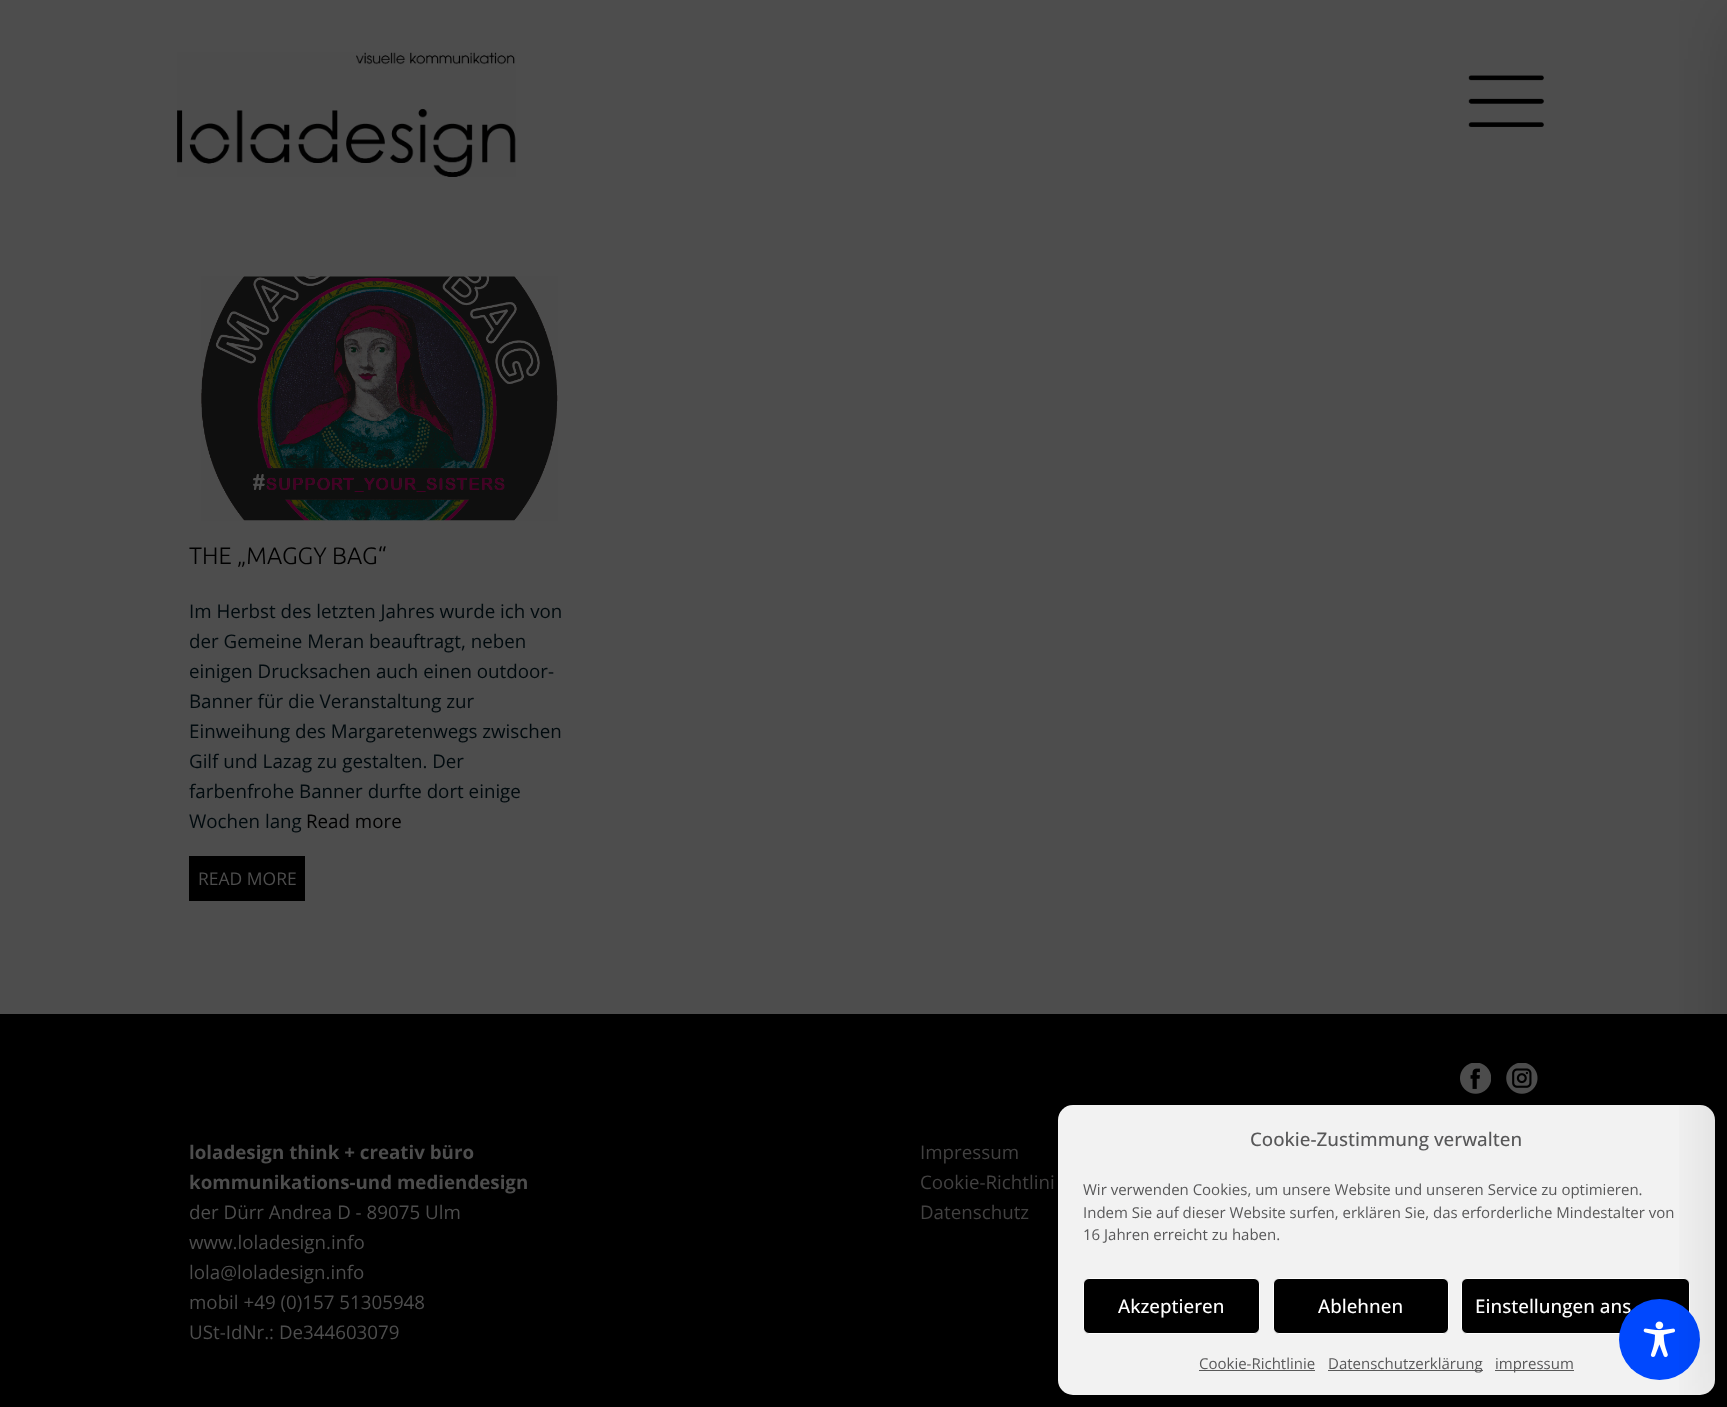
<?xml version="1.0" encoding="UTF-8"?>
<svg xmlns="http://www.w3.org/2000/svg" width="1727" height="1407">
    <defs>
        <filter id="blur1" x="-50%" y="-200%" width="200%" height="500%"><feGaussianBlur stdDeviation="37.5"/></filter>
    </defs>
    <rect width="100%" height="100%" fill="#4D4D4D"/>
    <image x="177" y="52" width="339" height="125" href="img_01.png"/>
    <image x="1468" y="75" width="76" height="52" href="img_02.png"/>
    <image x="201" y="276" width="357" height="245" href="img_03.png"/>
    <text x="189" y="564" font-family="Ubuntu" font-size="23.75" font-weight="300" fill="#000000">THE „MAGGY BAG“</text>
    <text font-family="Open Sans" font-size="18.75" fill="#000A0E">
        <tspan x="189" y="618">Im Herbst des letzten Jahres wurde ich von</tspan>
        <tspan x="189" y="648">der Gemeine Meran beauftragt, neben</tspan>
        <tspan x="189" y="678">einigen Drucksachen auch einen outdoor-</tspan>
        <tspan x="189" y="708">Banner für die Veranstaltung zur</tspan>
        <tspan x="189" y="738">Einweihung des Margaretenwegs zwischen</tspan>
        <tspan x="189" y="768">Gilf und Lazag zu gestalten. Der</tspan>
        <tspan x="189" y="798">farbenfrohe Banner durfte dort einige</tspan>
        <tspan x="189" y="828">Wochen lang</tspan>
    </text>
    <text x="306" y="828" font-family="Open Sans" font-size="18.75" fill="#000000">Read more</text>
    <rect x="189" y="856" width="116" height="45" fill="#000000"/>
    <text x="198" y="885" font-family="Open Sans" font-size="17.5" fill="#4D4D4D">READ MORE</text>
    <rect x="0" y="1014" width="1727" height="393" fill="#000000"/>
    <image x="1460" y="1063" width="31" height="31" href="img_04.png"/>
    <image x="1506" y="1063" width="32" height="31" href="img_05.png"/>
    <text font-family="Open Sans" font-size="18.75" font-weight="700" fill="#4D4D4D">
        <tspan x="189" y="1159">loladesign think + creativ büro</tspan>
        <tspan x="189" y="1189">kommunikations-und mediendesign</tspan>
    </text>
    <text font-family="Open Sans" font-size="18.75" fill="#4D4D4D">
        <tspan x="189" y="1219">der Dürr Andrea D - 89075 Ulm</tspan>
        <tspan x="189" y="1249">www.loladesign.info</tspan>
        <tspan x="189" y="1279">lola@loladesign.info</tspan>
        <tspan x="189" y="1309">mobil +49 (0)157 51305948</tspan>
        <tspan x="189" y="1339">USt-IdNr.: De344603079</tspan>
    </text>
    <text font-family="Open Sans" font-size="18.75" fill="#424141">
        <tspan x="920" y="1159">Impressum</tspan>
        <tspan x="920" y="1189">Cookie-Richtlini</tspan>
        <tspan x="920" y="1219">Datenschutz</tspan>
    </text>
    <rect x="1058" y="1105" width="657" height="290" rx="15" fill="#F2F2F2"/>
    <rect x="1461.5" y="1278.5" width="228" height="55" rx="5.5" fill="#000000" stroke="#FFFFFF"/>
    <text x="1475" y="1313" font-family="Open Sans" font-size="18.75" font-weight="500" fill="#FFFFFF">Einstellungen ans</text>
    <circle cx="1659.5" cy="1339.5" r="40.5" fill="#0048FE"/>
    <image x="1643" y="1321" width="32" height="37" href="img_06.png"/>
    <rect x="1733" y="13" width="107" height="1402" fill="#000000" fill-opacity="0.2" filter="url(#blur1)"/>
    <text x="1250" y="1146" font-family="Open Sans" font-size="18.75" font-weight="500" fill="#585859">Cookie-Zustimmung verwalten</text>
    <text font-family="Open Sans" font-size="15" fill="#585859">
        <tspan x="1083" y="1195">Wir verwenden Cookies, um unsere Website und unseren Service zu optimieren.</tspan>
        <tspan x="1083" y="1218">Indem Sie auf dieser Website surfen, erklären Sie, das erforderliche Mindestalter von</tspan>
        <tspan x="1083" y="1240">16 Jahren erreicht zu haben.</tspan>
    </text>
    <rect x="1083.5" y="1278.5" width="176" height="55" rx="5.5" fill="#000000" stroke="#FFFFFF"/>
    <text x="1118" y="1313" font-family="Open Sans" font-size="18.75" font-weight="500" fill="#FFFFFF">Akzeptieren</text>
    <rect x="1273.5" y="1278.5" width="175" height="55" rx="5.5" fill="#000000" stroke="#FFFFFF"/>
    <text x="1318" y="1313" font-family="Open Sans" font-size="18.75" font-weight="500" fill="#FFFFFF">Ablehnen</text>
    <text x="1199" y="1369" font-family="Open Sans" font-size="15" fill="#585859">Cookie-Richtlinie</text>
    <rect x="1199" y="1370" width="116" height="1" fill="#595959"/>
    <rect x="1328" y="1370" width="155" height="1" fill="#595959"/>
    <text x="1328" y="1369" font-family="Open Sans" font-size="15" fill="#585859">Datenschutzerklärung</text>
    <rect x="1495" y="1370" width="79" height="1" fill="#595959"/>
    <text x="1495" y="1369" font-family="Open Sans" font-size="15" fill="#585859">impressum</text>
</svg>
